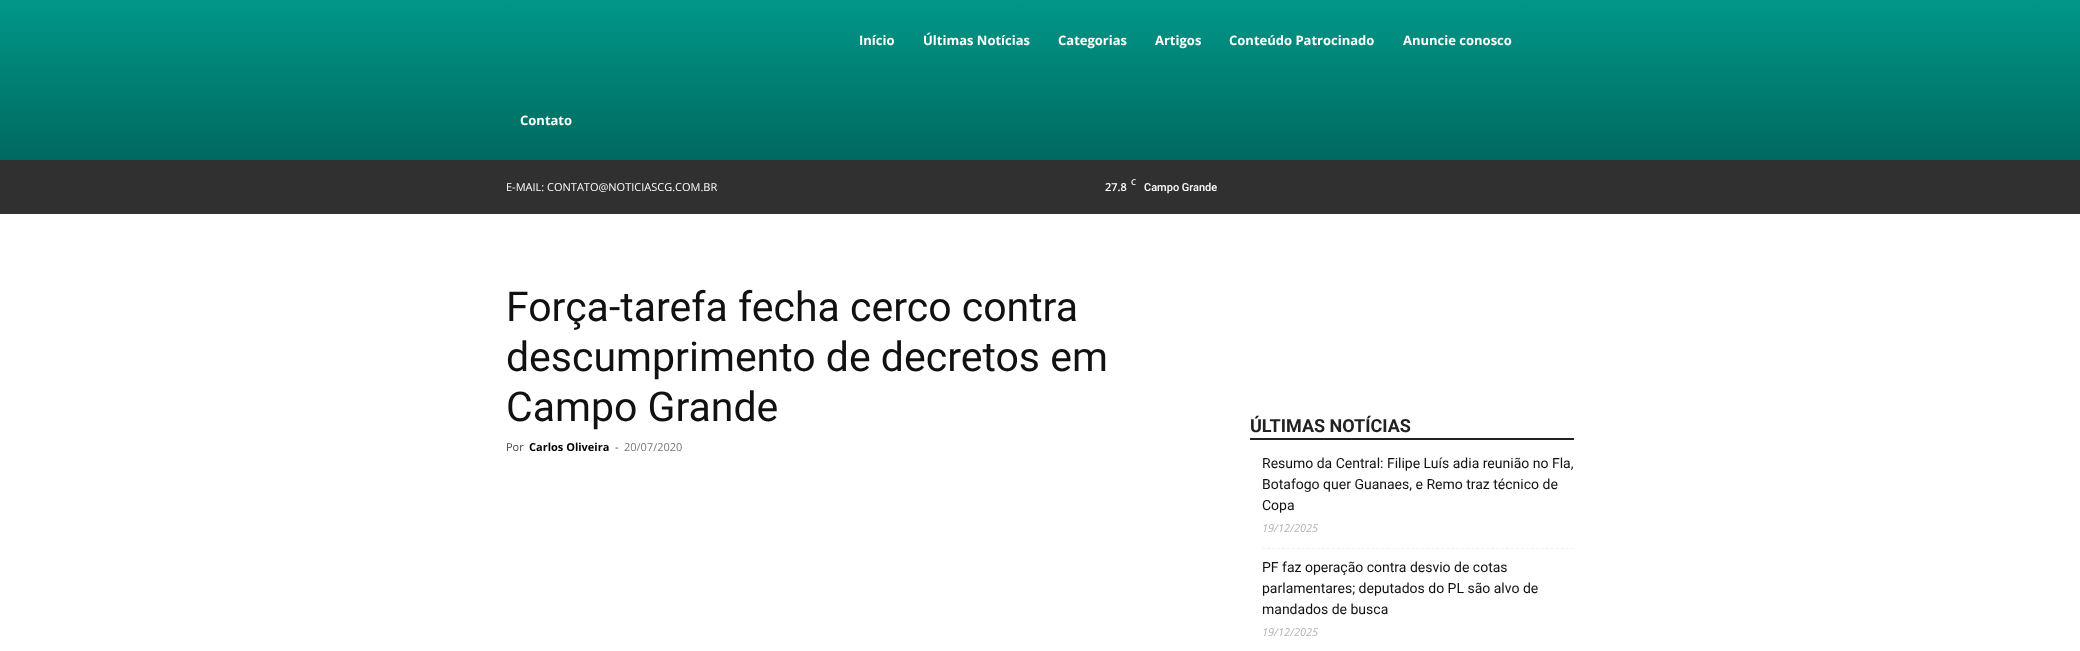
<?xml version="1.0" encoding="UTF-8"?>
<svg xmlns="http://www.w3.org/2000/svg" width="2080" height="651">
    <defs>
        <linearGradient id="g1" gradientUnits="userSpaceOnUse" x1="1040" y1="0" x2="1040" y2="160"><stop offset="0" stop-color="#009788"/><stop offset="1" stop-color="#00695F"/></linearGradient>
    </defs>
    <rect width="100%" height="100%" fill="#FFFFFF"/>
    <rect x="0" y="0" width="2080" height="160" fill="url(#g1)"/>
    <text x="859" y="45" font-family="Open Sans" font-size="13" font-weight="700" fill="#FFFFFF">Início</text>
    <text x="923" y="45" font-family="Open Sans" font-size="13" font-weight="700" fill="#FFFFFF">Últimas Notícias</text>
    <text x="1058" y="45" font-family="Open Sans" font-size="13" font-weight="700" fill="#FFFFFF">Categorias</text>
    <text x="1155" y="45" font-family="Open Sans" font-size="13" font-weight="700" fill="#FFFFFF">Artigos</text>
    <text x="1229" y="45" font-family="Open Sans" font-size="13" font-weight="700" fill="#FFFFFF">Conteúdo Patrocinado</text>
    <text x="1403" y="45" font-family="Open Sans" font-size="13" font-weight="700" fill="#FFFFFF">Anuncie conosco</text>
    <text x="520" y="125" font-family="Open Sans" font-size="13" font-weight="700" fill="#FFFFFF">Contato</text>
    <rect x="0" y="160" width="2080" height="54" fill="#303030"/>
    <text x="506" y="191" font-family="Open Sans" font-size="11" fill="#FFFFFF">E-MAIL: CONTATO@NOTICIASCG.COM.BR</text>
    <text x="1105" y="191" font-family="Open Sans" font-size="11" font-weight="600" fill="#FFFFFF">27.8</text>
    <text x="1131" y="185" font-family="Open Sans" font-size="8" font-weight="600" fill="#FFFFFF">C</text>
    <text x="1144" y="191" font-family="Roboto" font-size="11" font-weight="500" fill="#FFFFFF">Campo Grande</text>
    <text font-family="Roboto" font-size="41" fill="#111111">
        <tspan x="506" y="321">Força-tarefa fecha cerco contra</tspan>
        <tspan x="506" y="371">descumprimento de decretos em</tspan>
        <tspan x="506" y="421">Campo Grande</tspan>
    </text>
    <text x="506" y="451" font-family="Open Sans" font-size="11" fill="#444444">Por</text>
    <text x="529" y="451" font-family="Open Sans" font-size="11" font-weight="700" fill="#000000">Carlos Oliveira</text>
    <text x="615" y="451" font-family="Open Sans" font-size="11" fill="#444444">-</text>
    <text x="624" y="451" font-family="Open Sans" font-size="11" fill="#767676">20/07/2020</text>
    <rect x="1250" y="438" width="324" height="2" fill="#222222"/>
    <text x="1250" y="432" font-family="Roboto" font-size="18" font-weight="700" fill="#222222">ÚLTIMAS NOTÍCIAS</text>
    <path d="M 1262 548.5 H 1574" fill="none" stroke="#F1F1F1" stroke-dasharray="3 1.98"/>
    <text font-family="Roboto" font-size="14" fill="#111111">
        <tspan x="1262" y="468">Resumo da Central: Filipe Luís adia reunião no Fla,</tspan>
        <tspan x="1262" y="489">Botafogo quer Guanaes, e Remo traz técnico de</tspan>
        <tspan x="1262" y="510">Copa</tspan>
    </text>
    <text x="1262" y="532" font-family="Open Sans" font-size="11" font-style="italic" fill="#B5B5B5">19/12/2025</text>
    <text font-family="Roboto" font-size="14" fill="#111111">
        <tspan x="1262" y="572">PF faz operação contra desvio de cotas</tspan>
        <tspan x="1262" y="593">parlamentares; deputados do PL são alvo de</tspan>
        <tspan x="1262" y="614">mandados de busca</tspan>
    </text>
    <text x="1262" y="636" font-family="Open Sans" font-size="11" font-style="italic" fill="#B5B5B5">19/12/2025</text>
</svg>
